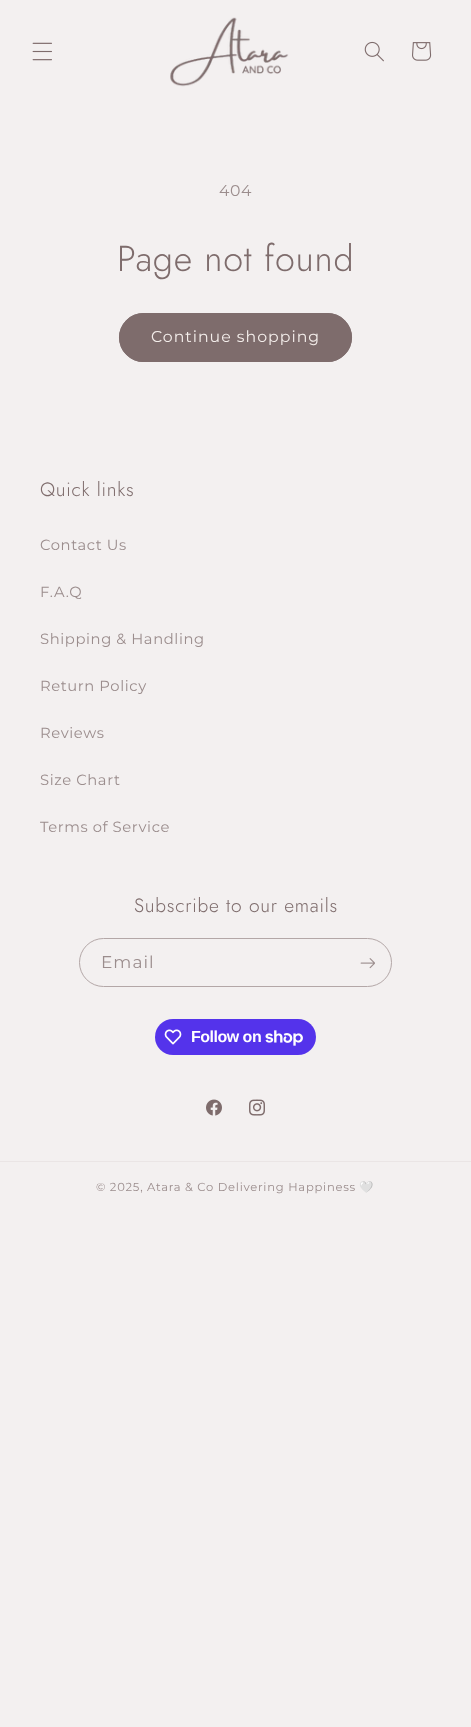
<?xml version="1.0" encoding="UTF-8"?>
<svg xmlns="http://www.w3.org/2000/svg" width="471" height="1727">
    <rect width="100%" height="100%" fill="#F3F0F0"/>
    <image x="32" y="42" width="20" height="19" href="img_01.png"/>
    <image x="170" y="17" width="119" height="70" href="img_02.png"/>
    <image x="364" y="41" width="20" height="21" href="img_03.png"/>
    <image x="412" y="42" width="20" height="19" href="img_04.png"/>
    <text x="219" y="196" font-family="Montserrat" font-size="15.75" letter-spacing="0.6" fill="#9B8D8D">404</text>
    <text x="117" y="271" font-family="Jost" font-size="36" font-weight="300" letter-spacing="0.75" fill="#7E6C6C">Page not found</text>
    <rect x="119" y="313" width="233" height="49" rx="24.5" fill="#7E6C6C"/>
    <rect x="119.5" y="313.5" width="232" height="48" rx="24" fill="none" stroke="#7E6C6C"/>
    <text x="151" y="342" font-family="Montserrat" font-size="15.75" letter-spacing="1" fill="#F4EEEB">Continue shopping</text>
    <text x="40" y="496" font-family="Jost" font-size="19.25" font-weight="300" letter-spacing="0.75" fill="#7E6C6C">Quick links</text>
    <text x="40" y="550" font-family="Montserrat" font-size="14.75" letter-spacing="0.6" fill="#9B8D8D">Contact Us</text>
    <text x="40" y="597" font-family="Montserrat" font-size="14.75" letter-spacing="0.6" fill="#9B8D8D">F.A.Q</text>
    <text x="40" y="644" font-family="Montserrat" font-size="14.75" letter-spacing="0.6" fill="#9B8D8D">Shipping &amp; Handling</text>
    <text x="40" y="691" font-family="Montserrat" font-size="14.75" letter-spacing="0.6" fill="#9B8D8D">Return Policy</text>
    <text x="40" y="738" font-family="Montserrat" font-size="14.75" letter-spacing="0.6" fill="#9B8D8D">Reviews</text>
    <text x="40" y="785" font-family="Montserrat" font-size="14.75" letter-spacing="0.6" fill="#9B8D8D">Size Chart</text>
    <text x="40" y="832" font-family="Montserrat" font-size="14.75" letter-spacing="0.6" fill="#9B8D8D">Terms of Service</text>
    <text x="134" y="912" font-family="Jost" font-size="19.25" font-weight="300" letter-spacing="0.75" fill="#7E6C6C">Subscribe to our emails</text>
    <rect x="79.5" y="938.5" width="312" height="48" rx="24" fill="none" stroke="#B3A7A7"/>
    <text x="101" y="968" font-family="Montserrat" font-size="17" letter-spacing="1" fill="#9B8D8D">Email</text>
    <image x="360" y="958" width="15" height="11" href="img_05.png"/>
    <rect x="155" y="1019" width="161" height="36" rx="18" fill="#5433EB"/>
    <image x="164" y="1029" width="18" height="16" href="img_06.png"/>
    <text x="191" y="1042" font-family="Liberation Sans" font-size="16" font-weight="700" letter-spacing="-0.5" fill="#FFFFFF">Follow on</text>
    <image x="265" y="1030" width="38" height="16" href="img_07.png"/>
    <image x="206" y="1099" width="16" height="17" href="img_08.png"/>
    <image x="249" y="1099" width="16" height="17" href="img_09.png"/>
    <rect x="0" y="1161" width="471" height="1" fill="#EAE5E5"/>
    <text x="96" y="1191" font-family="Montserrat" font-size="11.55" letter-spacing="0.75" fill="#9B8D8D">© 2025, Atara &amp; Co Delivering Happiness</text>
    <text x="359" y="1191" font-family="Noto Color Emoji" font-size="11.55" letter-spacing="0.75" fill="#9B8D8D">🤍</text>
</svg>
